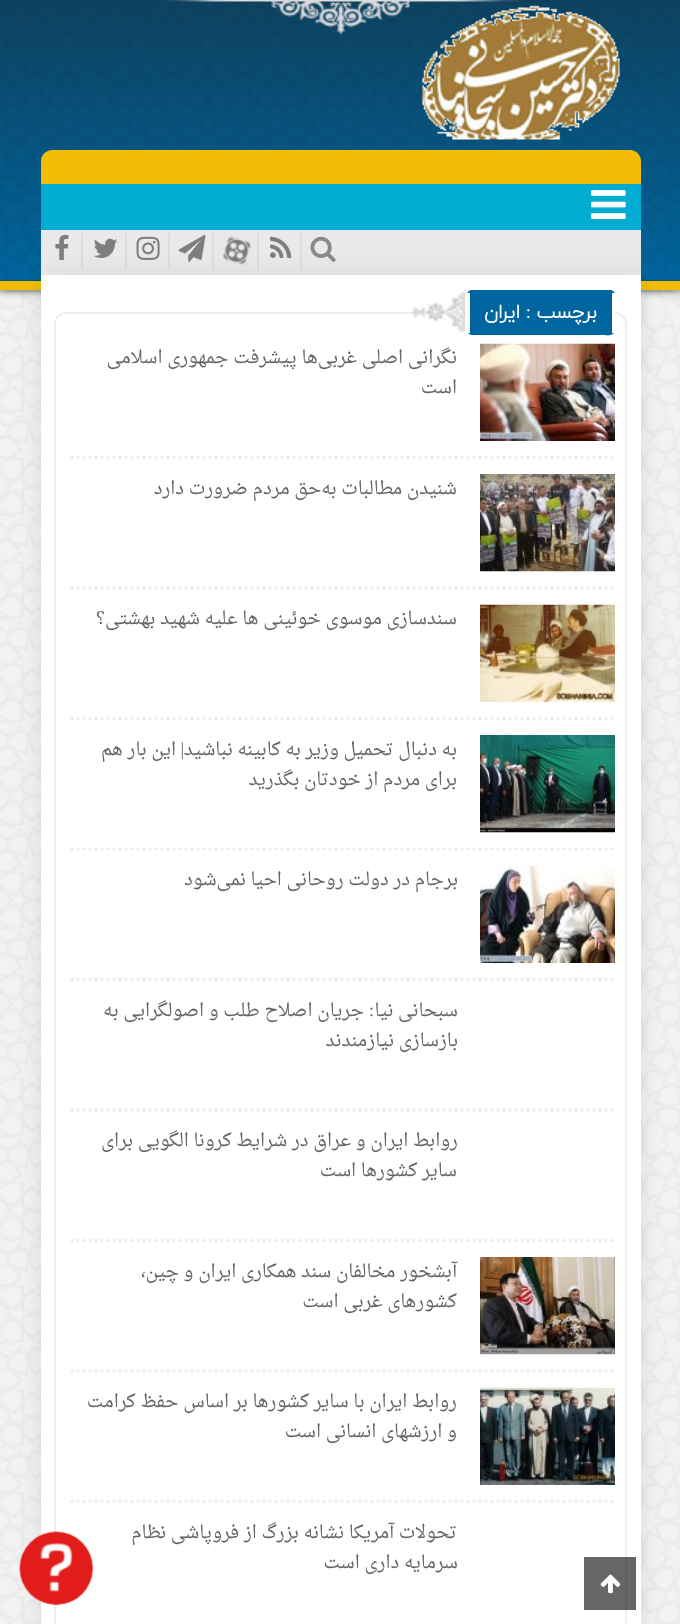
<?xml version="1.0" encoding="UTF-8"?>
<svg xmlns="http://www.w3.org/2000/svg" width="680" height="1624">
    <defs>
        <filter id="blur1" x="-50%" y="-200%" width="200%" height="500%"><feGaussianBlur stdDeviation="4"/></filter>
        <filter id="blur2" x="-50%" y="-200%" width="200%" height="500%"><feGaussianBlur stdDeviation="11"/></filter>
    </defs>
    <rect width="100%" height="100%" fill="#FFFFFF"/>
    <image x="0" y="290" width="680" height="1334" href="img_01.png"/>
    <rect x="0" y="0" width="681" height="290" fill="#333333" filter="url(#blur1)"/>
    <rect x="0" y="0" width="680" height="281" fill="#00669F"/>
    <image x="0" y="0" width="680" height="281" href="img_02.png"/>
    <rect x="0" y="281" width="680" height="9" fill="#F2BD04"/>
    <image x="161" y="0" width="359" height="35" href="img_03.png"/>
    <image x="422" y="5" width="198" height="135" href="img_04.png"/>
    <rect x="41" y="179" width="600" height="5" fill="#F2BD04"/>
    <path d="M 52 150 H 630 C 636 150 641 155 641 161 V 179 H 41 V 161 C 41 155 46 150 52 150 Z" fill="#F2BD04"/>
    <rect x="41" y="184" width="600" height="46" fill="#00ACD1"/>
    <image x="591" y="190" width="35" height="29" href="img_05.png"/>
    <rect x="41" y="230" width="600" height="45" fill="#E9E9E9"/>
    <rect x="300" y="233" width="2" height="36" fill="#DDDDDD"/>
    <image x="270" y="236" width="22" height="22" href="img_06.png"/>
    <image x="223" y="236" width="28" height="29" href="img_07.png"/>
    <rect x="257" y="233" width="2" height="37" fill="#DDDDDD"/>
    <rect x="212" y="233" width="2" height="36" fill="#DDDDDD"/>
    <image x="178" y="234" width="28" height="28" href="img_08.png"/>
    <rect x="168" y="233" width="2" height="36" fill="#DDDDDD"/>
    <image x="136" y="236" width="24" height="24" href="img_09.png"/>
    <rect x="125" y="233" width="2" height="36" fill="#DDDDDD"/>
    <image x="94" y="238" width="24" height="20" href="img_10.png"/>
    <rect x="81" y="233" width="2" height="36" fill="#DDDDDD"/>
    <image x="55" y="234" width="14" height="26" href="img_11.png"/>
    <rect x="41" y="272" width="600" height="2" fill="#ECEFF1"/>
    <image x="310" y="236" width="26" height="26" href="img_12.png"/>
    <rect x="41" y="275" width="600" height="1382" fill="#000000" fill-opacity="0.1" filter="url(#blur2)"/>
    <rect x="41" y="275" width="600" height="1349" fill="#FFFFFF"/>
    <rect x="55" y="313" width="571" height="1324" rx="11" fill="none" stroke="#EEEEEE" stroke-width="2"/>
    <rect x="584" y="1557" width="52" height="53" fill="#000000" fill-opacity="0.6"/>
    <image x="600" y="1574" width="21" height="20" href="img_13.png"/>
    <rect x="467" y="290" width="148" height="45" rx="5" fill="#00669F"/>
    <path d="M 471 290 C 470 290 470 293 470 294 V 330 C 470 331 470 334 471 334 H 587 C 612 334 612 341 612 324 V 291 L 610 290 Z" fill="#00669F"/>
    <rect x="612" y="293" width="3" height="40" fill="#FFFFFF"/>
    <rect x="467" y="293" width="3" height="40" fill="#FFFFFF"/>
    <text x="597" y="318" font-family="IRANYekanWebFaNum" font-size="19.5" font-weight="700" direction="rtl" fill="#FFFFFF">برچسب : ایران</text>
    <image x="412" y="292" width="53" height="40" href="img_14.png"/>
    <path d="M 70.5 457.5 H 615" fill="none" stroke="#EEEEEE" stroke-width="3" stroke-dasharray="3 3"/>
    <image x="480" y="343" width="135" height="98" href="img_15.png"/>
    <text font-family="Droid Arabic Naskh" font-size="18" direction="rtl" fill="#666666">
        <tspan x="457" y="363">نگرانی اصلی غربی‌ها پیشرفت جمهوری اسلامی</tspan>
        <tspan x="457" y="393">است</tspan>
    </text>
    <path d="M 70.5 588 H 615" fill="none" stroke="#EEEEEE" stroke-width="3" stroke-dasharray="3 3"/>
    <image x="480" y="474" width="135" height="98" href="img_16.png"/>
    <text x="457" y="494" font-family="Droid Arabic Naskh" font-size="18" direction="rtl" fill="#666666">شنیدن مطالبات به‌حق مردم ضرورت دارد</text>
    <path d="M 70.5 718.5 H 615" fill="none" stroke="#EEEEEE" stroke-width="3" stroke-dasharray="3 3"/>
    <image x="480" y="604" width="135" height="98" href="img_17.png"/>
    <text x="457" y="624" font-family="Droid Arabic Naskh" font-size="18" direction="rtl" fill="#666666">سندسازی موسوی خوئینی ها علیه شهید بهشتی؟</text>
    <path d="M 70.5 849 H 615" fill="none" stroke="#EEEEEE" stroke-width="3" stroke-dasharray="3 3"/>
    <image x="480" y="735" width="135" height="98" href="img_18.png"/>
    <text x="457" y="755" font-family="Droid Arabic Naskh" font-size="18" direction="rtl" fill="#666666">به دنبال تحمیل وزیر به کابینه نباشید</text>
    <text x="184" y="755" font-family="Liberation Serif" font-size="18" direction="rtl" fill="#666666">|</text>
    <text x="176" y="755" font-family="Droid Arabic Naskh" font-size="18" direction="rtl" fill="#666666">این بار هم</text>
    <text x="457" y="785" font-family="Droid Arabic Naskh" font-size="18" direction="rtl" fill="#666666">برای مردم از خودتان بگذرید</text>
    <path d="M 70.5 979.5 H 615" fill="none" stroke="#EEEEEE" stroke-width="3" stroke-dasharray="3 3"/>
    <image x="480" y="865" width="135" height="98" href="img_19.png"/>
    <text x="458" y="885" font-family="Droid Arabic Naskh" font-size="18" direction="rtl" fill="#666666">برجام در دولت روحانی احیا نمی‌شود</text>
    <path d="M 70.5 1110 H 615" fill="none" stroke="#EEEEEE" stroke-width="3" stroke-dasharray="3 3"/>
    <text x="458" y="1016" font-family="Droid Arabic Naskh" font-size="18" direction="rtl" fill="#666666">سبحانی نیا</text>
    <text x="374" y="1016" font-family="Liberation Serif" font-size="18" direction="rtl" fill="#666666">:</text>
    <text x="364" y="1016" font-family="Droid Arabic Naskh" font-size="18" direction="rtl" fill="#666666">جریان اصلاح طلب و اصولگرایی به</text>
    <text x="458" y="1046" font-family="Droid Arabic Naskh" font-size="18" direction="rtl" fill="#666666">بازسازی نیازمندند</text>
    <path d="M 70.5 1240.5 H 615" fill="none" stroke="#EEEEEE" stroke-width="3" stroke-dasharray="3 3"/>
    <text x="458" y="1146" font-family="Droid Arabic Naskh" font-size="18" direction="rtl" fill="#666666">روابط ایران و عراق در شرایط کرونا الگویی برای</text>
    <text x="457" y="1176" font-family="Droid Arabic Naskh" font-size="18" direction="rtl" fill="#666666">سایر کشورها است</text>
    <path d="M 70.5 1371 H 615" fill="none" stroke="#EEEEEE" stroke-width="3" stroke-dasharray="3 3"/>
    <image x="480" y="1257" width="135" height="98" href="img_20.png"/>
    <text font-family="Droid Arabic Naskh" font-size="18" direction="rtl" fill="#666666">
        <tspan x="457" y="1277">آبشخور مخالفان سند همکاری ایران و چین،</tspan>
        <tspan x="457" y="1307">کشورهای غربی است</tspan>
    </text>
    <path d="M 70.5 1501.5 H 615" fill="none" stroke="#EEEEEE" stroke-width="3" stroke-dasharray="3 3"/>
    <image x="480" y="1387" width="135" height="98" href="img_21.png"/>
    <text font-family="Droid Arabic Naskh" font-size="18" direction="rtl" fill="#666666">
        <tspan x="457" y="1407">روابط ایران با سایر کشورها بر اساس حفظ کرامت</tspan>
        <tspan x="457" y="1437">و ارزشهای انسانی است</tspan>
    </text>
    <text x="457" y="1538" font-family="Droid Arabic Naskh" font-size="18" direction="rtl" fill="#666666">تحولات آمریکا نشانه بزرگ از فروپاشی نظام</text>
    <text x="458" y="1568" font-family="Droid Arabic Naskh" font-size="18" direction="rtl" fill="#666666">سرمایه داری است</text>
    <image x="19" y="1531" width="75" height="75" href="img_22.png"/>
</svg>
